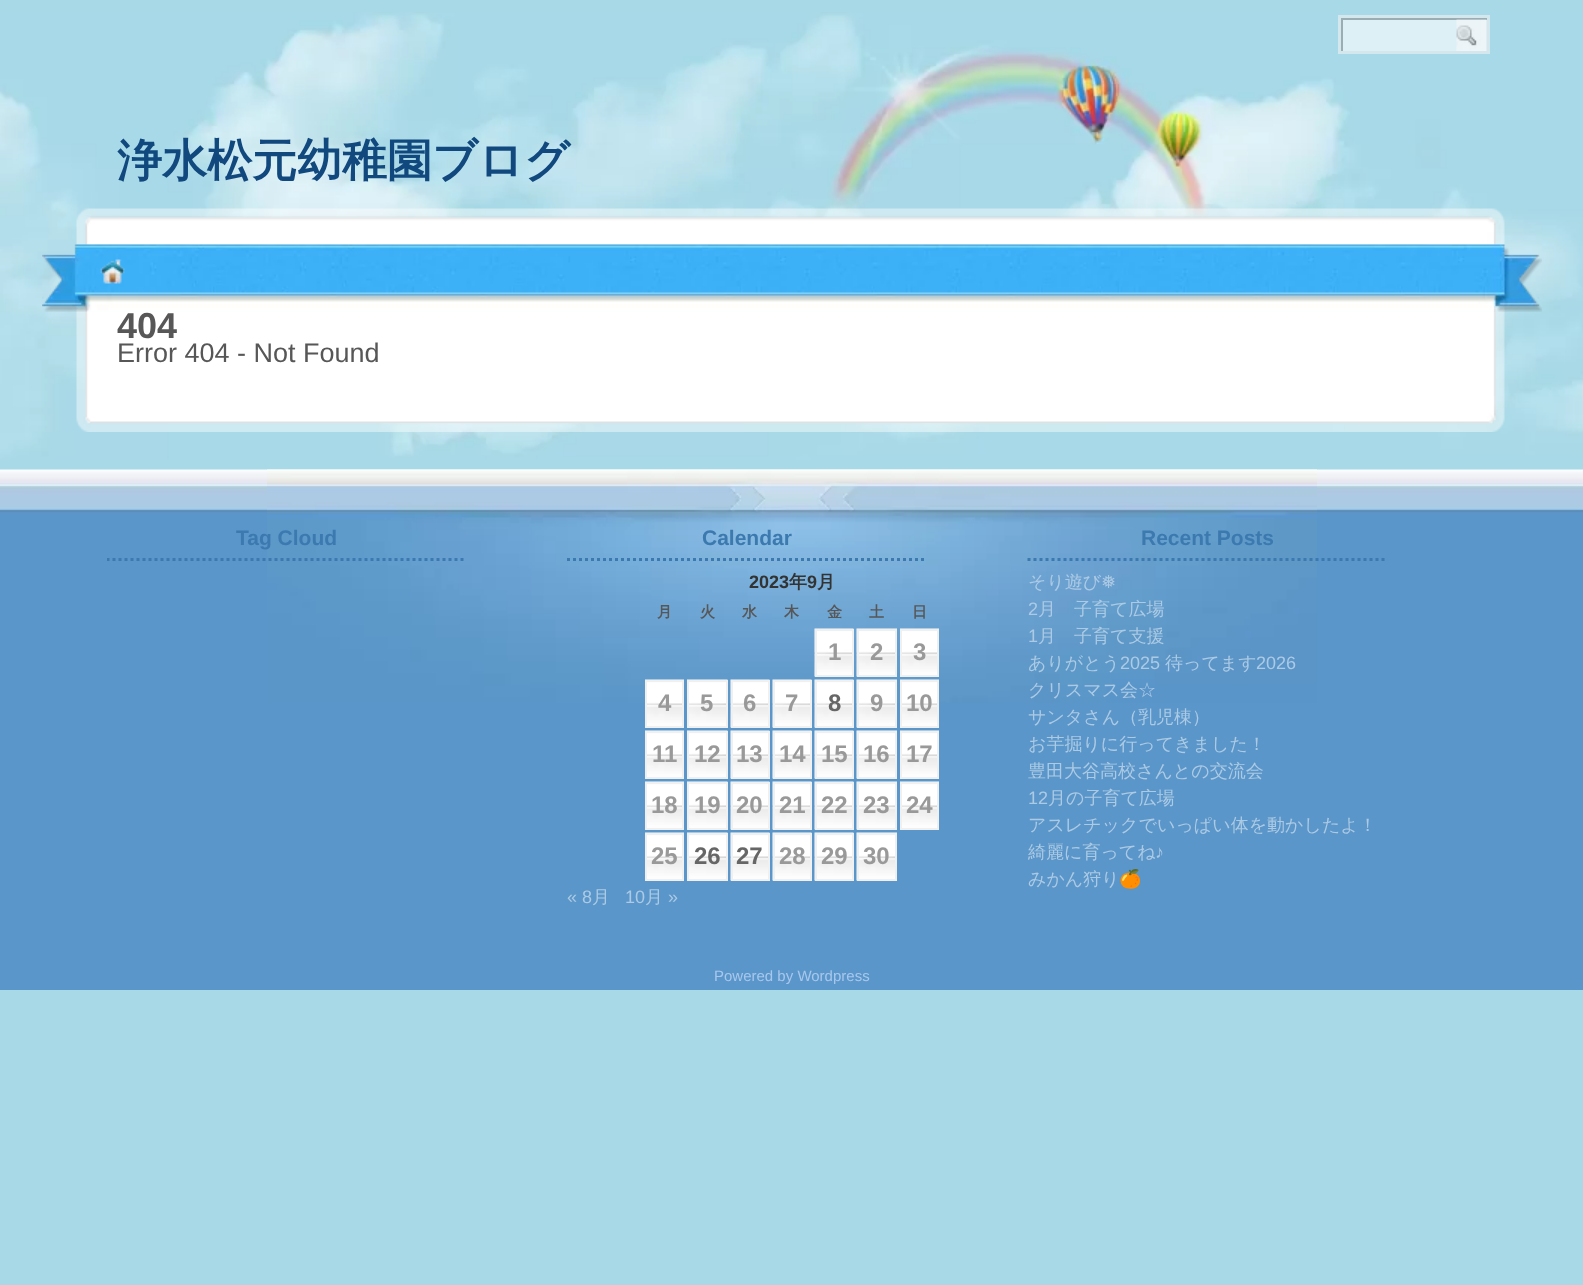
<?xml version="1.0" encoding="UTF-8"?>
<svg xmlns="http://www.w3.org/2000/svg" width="1583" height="1285">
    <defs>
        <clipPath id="clip1"><rect x="107" y="470" width="1371" height="456"/></clipPath>
    </defs>
    <rect width="100%" height="100%" fill="#A7D9E7"/>
    <image x="0" y="12" width="1583" height="448" href="img_01.png"/>
    <rect x="1338" y="15" width="152" height="39" fill="#D3E7ED"/>
    <rect x="1341" y="18" width="146" height="2" fill="#99ADB3"/>
    <rect x="1343" y="20" width="114" height="31" fill="#DCF0F6"/>
    <rect x="1341" y="20" width="2" height="31" fill="#99ADB3"/>
    <image x="1456" y="19" width="31" height="32" href="img_02.png"/>
    <text x="117" y="176" font-family="WenQuanYi Zen Hei" font-size="45" font-weight="700" fill="#11487D">浄水松元幼稚園ブログ</text>
    <image x="76" y="208" width="1429" height="37" href="img_03.png"/>
    <image x="42" y="244" width="1500" height="68" href="img_04.png"/>
    <image x="100" y="259" width="25" height="25" href="img_05.png"/>
    <image x="76" y="312" width="1429" height="84" href="img_06.png"/>
    <text x="117" y="338" font-family="Liberation Sans" font-size="36" font-weight="700" fill="#575757">404</text>
    <text x="117" y="362" font-family="Liberation Sans" font-size="27" fill="#575757">Error 404 - Not Found</text>
    <image x="76" y="396" width="1429" height="36" href="img_07.png"/>
    <rect x="0" y="513" width="1583" height="477" fill="#5A96CA"/>
    <image x="0" y="469" width="1583" height="44" href="img_08.png"/>
    <image x="267" y="469" width="1050" height="234" href="img_09.png"/>
    <g clip-path="url(#clip1)">
        <path d="M 106.5 559.5 H 466.5" fill="none" stroke="#3C79AF" stroke-width="3" stroke-dasharray="3 3"/>
    </g>
    <text x="236" y="545" font-family="Liberation Sans" font-size="21" font-weight="700" fill="#3C79AF">Tag Cloud</text>
    <path d="M 567 559.5 H 927" fill="none" stroke="#3C79AF" stroke-width="3" stroke-dasharray="3 3"/>
    <text x="702" y="545" font-family="Liberation Sans" font-size="21" font-weight="700" fill="#3C79AF">Calendar</text>
    <text x="749" y="588" font-family="Liberation Sans" font-size="18" font-weight="700" fill="#333333">2023</text>
    <text x="789" y="588" font-family="WenQuanYi Zen Hei" font-size="18" font-weight="700" fill="#333333">年</text>
    <text x="807" y="588" font-family="Liberation Sans" font-size="18" font-weight="700" fill="#333333">9</text>
    <text x="817" y="588" font-family="WenQuanYi Zen Hei" font-size="18" font-weight="700" fill="#333333">月</text>
    <text x="657" y="617" font-family="WenQuanYi Zen Hei" font-size="15" font-weight="700" fill="#575757">月</text>
    <text x="700" y="617" font-family="WenQuanYi Zen Hei" font-size="15" font-weight="700" fill="#575757">火</text>
    <text x="742" y="617" font-family="WenQuanYi Zen Hei" font-size="15" font-weight="700" fill="#575757">水</text>
    <text x="784" y="617" font-family="WenQuanYi Zen Hei" font-size="15" font-weight="700" fill="#575757">木</text>
    <text x="827" y="617" font-family="WenQuanYi Zen Hei" font-size="15" font-weight="700" fill="#575757">金</text>
    <text x="869" y="617" font-family="WenQuanYi Zen Hei" font-size="15" font-weight="700" fill="#575757">土</text>
    <text x="912" y="617" font-family="WenQuanYi Zen Hei" font-size="15" font-weight="700" fill="#575757">日</text>
    <image x="814" y="628" width="40" height="49" href="img_10.png"/>
    <rect x="816" y="630" width="37" height="46" fill="none" stroke="#F0F0F0" stroke-width="2"/>
    <text x="828" y="660" font-family="Liberation Sans" font-size="24" font-weight="700" fill="#999999">1</text>
    <image x="856" y="628" width="41" height="49" href="img_11.png"/>
    <rect x="858" y="630" width="38" height="46" fill="none" stroke="#F0F0F0" stroke-width="2"/>
    <text x="870" y="660" font-family="Liberation Sans" font-size="24" font-weight="700" fill="#999999">2</text>
    <image x="900" y="628" width="39" height="47" href="img_12.png"/>
    <rect x="901" y="630" width="37" height="46" fill="none" stroke="#F0F0F0" stroke-width="2"/>
    <text x="913" y="660" font-family="Liberation Sans" font-size="24" font-weight="700" fill="#999999">3</text>
    <image x="645" y="679" width="39" height="47" href="img_13.png"/>
    <rect x="646" y="681" width="37" height="46" fill="none" stroke="#F0F0F0" stroke-width="2"/>
    <text x="658" y="711" font-family="Liberation Sans" font-size="24" font-weight="700" fill="#999999">4</text>
    <image x="687" y="679" width="41" height="47" href="img_14.png"/>
    <rect x="688" y="681" width="39" height="46" fill="none" stroke="#F0F0F0" stroke-width="2"/>
    <text x="700" y="711" font-family="Liberation Sans" font-size="24" font-weight="700" fill="#999999">5</text>
    <image x="730" y="679" width="40" height="49" href="img_15.png"/>
    <rect x="732" y="681" width="37" height="46" fill="none" stroke="#F0F0F0" stroke-width="2"/>
    <text x="743" y="711" font-family="Liberation Sans" font-size="24" font-weight="700" fill="#999999">6</text>
    <image x="772" y="679" width="40" height="49" href="img_16.png"/>
    <rect x="774" y="681" width="37" height="46" fill="none" stroke="#F0F0F0" stroke-width="2"/>
    <text x="785" y="711" font-family="Liberation Sans" font-size="24" font-weight="700" fill="#999999">7</text>
    <image x="814" y="679" width="40" height="49" href="img_17.png"/>
    <rect x="816" y="681" width="37" height="46" fill="none" stroke="#F0F0F0" stroke-width="2"/>
    <text x="828" y="711" font-family="Liberation Sans" font-size="24" font-weight="700" fill="#666666">8</text>
    <image x="856" y="679" width="41" height="49" href="img_18.png"/>
    <rect x="858" y="681" width="38" height="46" fill="none" stroke="#F0F0F0" stroke-width="2"/>
    <text x="870" y="711" font-family="Liberation Sans" font-size="24" font-weight="700" fill="#999999">9</text>
    <image x="900" y="679" width="39" height="47" href="img_19.png"/>
    <rect x="901" y="681" width="37" height="46" fill="none" stroke="#F0F0F0" stroke-width="2"/>
    <text x="906" y="711" font-family="Liberation Sans" font-size="24" font-weight="700" fill="#999999">10</text>
    <image x="645" y="730" width="39" height="47" href="img_20.png"/>
    <rect x="646" y="732" width="37" height="46" fill="none" stroke="#F0F0F0" stroke-width="2"/>
    <text x="652" y="762" font-family="Liberation Sans" font-size="24" font-weight="700" fill="#999999">11</text>
    <image x="687" y="730" width="41" height="47" href="img_21.png"/>
    <rect x="688" y="732" width="39" height="46" fill="none" stroke="#F0F0F0" stroke-width="2"/>
    <text x="694" y="762" font-family="Liberation Sans" font-size="24" font-weight="700" fill="#999999">12</text>
    <image x="730" y="730" width="40" height="49" href="img_22.png"/>
    <rect x="732" y="732" width="37" height="46" fill="none" stroke="#F0F0F0" stroke-width="2"/>
    <text x="736" y="762" font-family="Liberation Sans" font-size="24" font-weight="700" fill="#999999">13</text>
    <image x="772" y="730" width="40" height="49" href="img_22.png"/>
    <rect x="774" y="732" width="37" height="46" fill="none" stroke="#F0F0F0" stroke-width="2"/>
    <text x="779" y="762" font-family="Liberation Sans" font-size="24" font-weight="700" fill="#999999">14</text>
    <image x="814" y="730" width="40" height="49" href="img_22.png"/>
    <rect x="816" y="732" width="37" height="46" fill="none" stroke="#F0F0F0" stroke-width="2"/>
    <text x="821" y="762" font-family="Liberation Sans" font-size="24" font-weight="700" fill="#999999">15</text>
    <image x="856" y="730" width="41" height="49" href="img_23.png"/>
    <rect x="858" y="732" width="38" height="46" fill="none" stroke="#F0F0F0" stroke-width="2"/>
    <text x="863" y="762" font-family="Liberation Sans" font-size="24" font-weight="700" fill="#999999">16</text>
    <image x="900" y="730" width="39" height="47" href="img_20.png"/>
    <rect x="901" y="732" width="37" height="46" fill="none" stroke="#F0F0F0" stroke-width="2"/>
    <text x="906" y="762" font-family="Liberation Sans" font-size="24" font-weight="700" fill="#999999">17</text>
    <image x="645" y="781" width="39" height="47" href="img_24.png"/>
    <rect x="646" y="783" width="37" height="46" fill="none" stroke="#F0F0F0" stroke-width="2"/>
    <text x="651" y="813" font-family="Liberation Sans" font-size="24" font-weight="700" fill="#999999">18</text>
    <image x="687" y="781" width="41" height="47" href="img_25.png"/>
    <rect x="688" y="783" width="39" height="46" fill="none" stroke="#F0F0F0" stroke-width="2"/>
    <text x="694" y="813" font-family="Liberation Sans" font-size="24" font-weight="700" fill="#999999">19</text>
    <image x="730" y="781" width="40" height="49" href="img_26.png"/>
    <rect x="732" y="783" width="37" height="46" fill="none" stroke="#F0F0F0" stroke-width="2"/>
    <text x="736" y="813" font-family="Liberation Sans" font-size="24" font-weight="700" fill="#999999">20</text>
    <image x="772" y="781" width="40" height="49" href="img_26.png"/>
    <rect x="774" y="783" width="37" height="46" fill="none" stroke="#F0F0F0" stroke-width="2"/>
    <text x="779" y="813" font-family="Liberation Sans" font-size="24" font-weight="700" fill="#999999">21</text>
    <image x="814" y="781" width="40" height="49" href="img_26.png"/>
    <rect x="816" y="783" width="37" height="46" fill="none" stroke="#F0F0F0" stroke-width="2"/>
    <text x="821" y="813" font-family="Liberation Sans" font-size="24" font-weight="700" fill="#999999">22</text>
    <image x="856" y="781" width="41" height="49" href="img_27.png"/>
    <rect x="858" y="783" width="38" height="46" fill="none" stroke="#F0F0F0" stroke-width="2"/>
    <text x="863" y="813" font-family="Liberation Sans" font-size="24" font-weight="700" fill="#999999">23</text>
    <image x="900" y="781" width="39" height="47" href="img_24.png"/>
    <rect x="901" y="783" width="37" height="46" fill="none" stroke="#F0F0F0" stroke-width="2"/>
    <text x="906" y="813" font-family="Liberation Sans" font-size="24" font-weight="700" fill="#999999">24</text>
    <image x="645" y="832" width="39" height="47" href="img_28.png"/>
    <rect x="646" y="834" width="37" height="46" fill="none" stroke="#F0F0F0" stroke-width="2"/>
    <text x="651" y="864" font-family="Liberation Sans" font-size="24" font-weight="700" fill="#999999">25</text>
    <image x="687" y="832" width="41" height="47" href="img_29.png"/>
    <rect x="688" y="834" width="39" height="46" fill="none" stroke="#F0F0F0" stroke-width="2"/>
    <text x="694" y="864" font-family="Liberation Sans" font-size="24" font-weight="700" fill="#666666">26</text>
    <image x="730" y="832" width="40" height="49" href="img_30.png"/>
    <rect x="732" y="834" width="37" height="46" fill="none" stroke="#F0F0F0" stroke-width="2"/>
    <text x="736" y="864" font-family="Liberation Sans" font-size="24" font-weight="700" fill="#666666">27</text>
    <image x="772" y="832" width="40" height="49" href="img_30.png"/>
    <rect x="774" y="834" width="37" height="46" fill="none" stroke="#F0F0F0" stroke-width="2"/>
    <text x="779" y="864" font-family="Liberation Sans" font-size="24" font-weight="700" fill="#999999">28</text>
    <image x="814" y="832" width="40" height="49" href="img_30.png"/>
    <rect x="816" y="834" width="37" height="46" fill="none" stroke="#F0F0F0" stroke-width="2"/>
    <text x="821" y="864" font-family="Liberation Sans" font-size="24" font-weight="700" fill="#999999">29</text>
    <image x="856" y="832" width="41" height="49" href="img_31.png"/>
    <rect x="858" y="834" width="38" height="46" fill="none" stroke="#F0F0F0" stroke-width="2"/>
    <text x="863" y="864" font-family="Liberation Sans" font-size="24" font-weight="700" fill="#999999">30</text>
    <text x="567" y="903" font-family="Liberation Sans" font-size="18" fill="#ACCAE4">« 8</text>
    <text x="592" y="903" font-family="WenQuanYi Zen Hei" font-size="18" font-weight="500" fill="#ACCAE4">月</text>
    <text x="625" y="903" font-family="Liberation Sans" font-size="18" fill="#ACCAE4">10</text>
    <text x="645" y="903" font-family="WenQuanYi Zen Hei" font-size="18" font-weight="500" fill="#ACCAE4">月</text>
    <text x="668" y="903" font-family="Liberation Sans" font-size="18" fill="#ACCAE4">»</text>
    <path d="M 1027.5 559.5 H 1387.5" fill="none" stroke="#3C79AF" stroke-width="3" stroke-dasharray="3 3"/>
    <text x="1141" y="545" font-family="Liberation Sans" font-size="21" font-weight="700" fill="#3C79AF">Recent Posts</text>
    <text x="1028" y="588" font-family="WenQuanYi Zen Hei" font-size="18" font-weight="500" fill="#ACCAE4">そり遊び</text>
    <text x="1101" y="588" font-family="DejaVu Sans" font-size="18" fill="#ACCAE4">❅</text>
    <text x="1028" y="615" font-family="Liberation Sans" font-size="18" fill="#ACCAE4">2</text>
    <text x="1038" y="615" font-family="WenQuanYi Zen Hei" font-size="18" font-weight="500" fill="#ACCAE4">月　子育て広場</text>
    <text x="1028" y="642" font-family="Liberation Sans" font-size="18" fill="#ACCAE4">1</text>
    <text x="1038" y="642" font-family="WenQuanYi Zen Hei" font-size="18" font-weight="500" fill="#ACCAE4">月　子育て支援</text>
    <text x="1028" y="669" font-family="WenQuanYi Zen Hei" font-size="18" font-weight="500" fill="#ACCAE4">ありがとう</text>
    <text x="1120" y="669" font-family="Liberation Sans" font-size="18" fill="#ACCAE4">2025</text>
    <text x="1165" y="669" font-family="WenQuanYi Zen Hei" font-size="18" font-weight="500" fill="#ACCAE4">待ってます</text>
    <text x="1256" y="669" font-family="Liberation Sans" font-size="18" fill="#ACCAE4">2026</text>
    <text font-family="WenQuanYi Zen Hei" font-size="18" font-weight="500" fill="#ACCAE4">
        <tspan x="1028" y="696">クリスマス会☆</tspan>
        <tspan x="1028" y="723">サンタさん（乳児棟）</tspan>
        <tspan x="1028" y="750">お芋掘りに行ってきました！</tspan>
        <tspan x="1028" y="777">豊田大谷高校さんとの交流会</tspan>
    </text>
    <text x="1028" y="804" font-family="Liberation Sans" font-size="18" fill="#ACCAE4">12</text>
    <text x="1048" y="804" font-family="WenQuanYi Zen Hei" font-size="18" font-weight="500" fill="#ACCAE4">月の子育て広場</text>
    <text font-family="WenQuanYi Zen Hei" font-size="18" font-weight="500" fill="#ACCAE4">
        <tspan x="1028" y="831">アスレチックでいっぱい体を動かしたよ！</tspan>
        <tspan x="1028" y="858">綺麗に育ってね</tspan>
    </text>
    <text x="1155" y="858" font-family="Liberation Sans" font-size="18" fill="#ACCAE4">♪</text>
    <text x="1028" y="885" font-family="WenQuanYi Zen Hei" font-size="18" font-weight="500" fill="#ACCAE4">みかん狩り</text>
    <text x="1119" y="885" font-family="Noto Color Emoji" font-size="18" fill="#ACCAE4">🍊</text>
    <text x="714" y="981" font-family="Liberation Sans" font-size="15" fill="#A8C7EC">Powered by Wordpress</text>
</svg>
